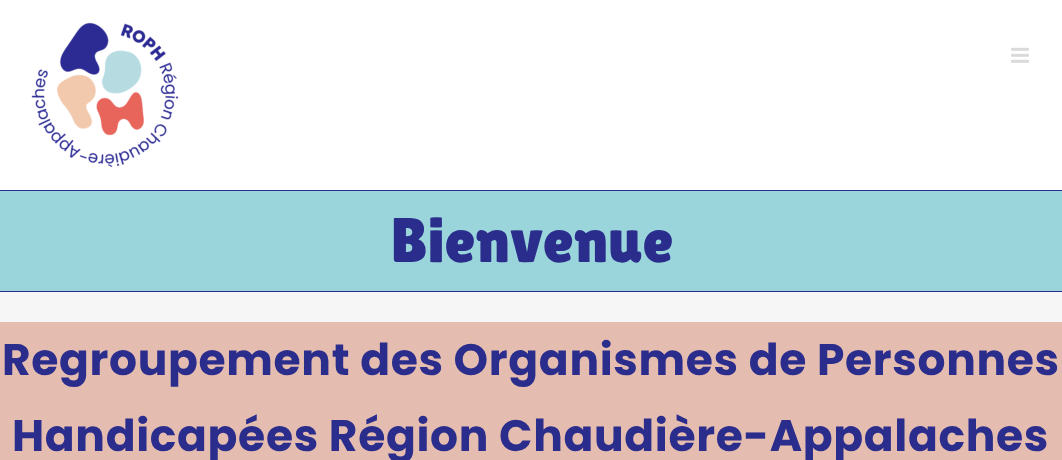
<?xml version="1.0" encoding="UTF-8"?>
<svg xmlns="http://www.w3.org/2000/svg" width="1062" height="460">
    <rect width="100%" height="100%" fill="#99D5DB"/>
    <rect x="0" y="0" width="1062" height="190" fill="#FFFFFF"/>
    <image x="31" y="22" width="148" height="146" href="img_01.png"/>
    <image x="1011" y="47" width="18" height="16" href="img_02.png"/>
    <rect x="0" y="190" width="1062" height="1" fill="#2B2D8C"/>
    <rect x="0" y="291" width="1062" height="1" fill="#2B2D8C"/>
    <text x="390" y="262" font-family="Lilita One" font-size="63" fill="#2B2D8C">Bienvenue</text>
    <rect x="0" y="292" width="1062" height="30" fill="#F6F6F6"/>
    <rect x="0" y="322" width="1062" height="138" fill="#E5BDB0"/>
    <text x="2" y="375" font-family="Poppins" font-size="44" font-weight="700" letter-spacing="0.65" fill="#2B2D8C">Regroupement des Organismes de Personnes</text>
    <text x="12" y="451" font-family="Poppins" font-size="44" font-weight="700" letter-spacing="0.65" fill="#2B2D8C">Handicapées Région Chaudière-Appalaches</text>
</svg>
